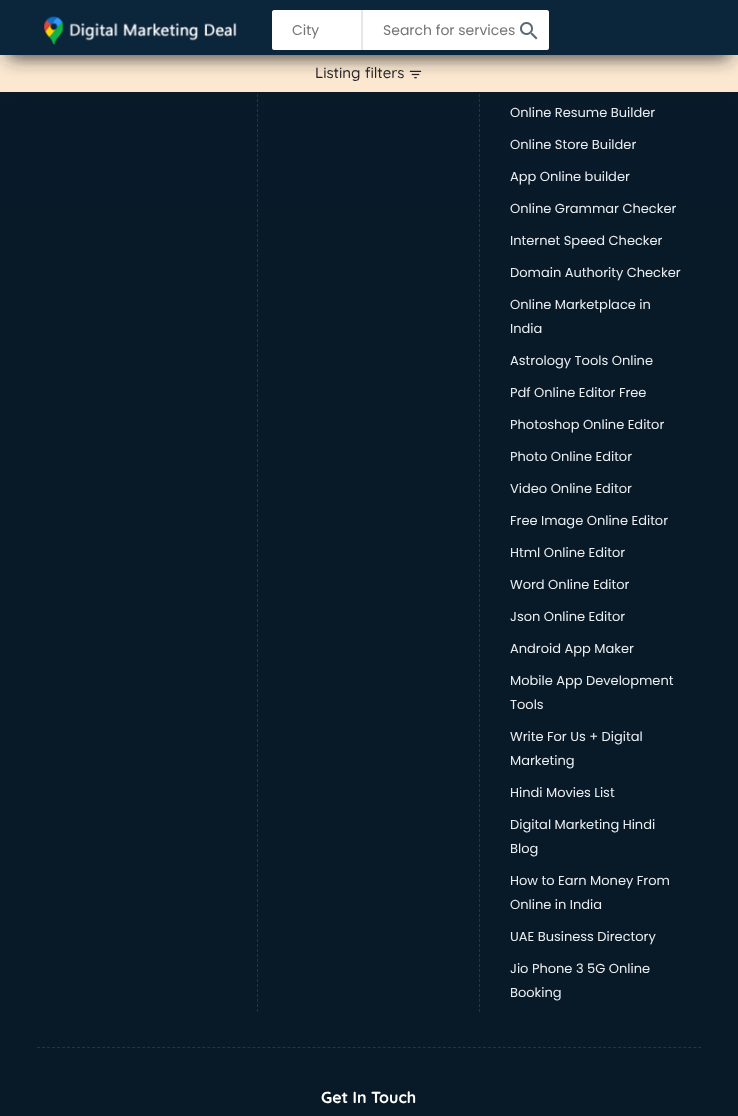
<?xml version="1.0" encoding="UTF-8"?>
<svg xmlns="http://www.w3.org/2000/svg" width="738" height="1116">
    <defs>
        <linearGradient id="g1" gradientUnits="userSpaceOnUse" x1="369" y1="-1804" x2="369" y2="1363"><stop offset="0" stop-color="#0B253A"/><stop offset="0.7" stop-color="#081927"/></linearGradient>
        <filter id="blur1" x="-50%" y="-200%" width="200%" height="500%"><feGaussianBlur stdDeviation="9"/></filter>
    </defs>
    <rect width="100%" height="100%" fill="#FFFFFF"/>
    <rect x="0" y="92" width="738" height="1024" fill="url(#g1)"/>
    <path d="M 257.5 -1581 V 1012" fill="none" stroke="#163A56" stroke-dasharray="3 2"/>
    <path d="M 479.5 -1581 V 1012" fill="none" stroke="#163A56" stroke-dasharray="3 2"/>
    <rect x="11" y="71" width="716" height="16" fill="#000000" fill-opacity="0.25" filter="url(#blur1)"/>
    <rect x="0" y="55" width="738" height="37" fill="#FCE8D1"/>
    <image x="409" y="70" width="13" height="9" href="img_03.png"/>
    <rect x="8" y="19" width="722" height="39" fill="#2A2A2A" fill-opacity="0.86" filter="url(#blur1)"/>
    <rect x="0" y="0" width="738" height="55" fill="#0B253A"/>
    <image x="44" y="16" width="193" height="29" href="img_01.png"/>
    <path d="M 274 10 H 361 V 50 H 274 C 273 50 272 49 272 48 V 12 C 272 11 273 10 274 10 Z" fill="#FFFFFF"/>
    <text x="292" y="35" font-family="Poppins" font-size="14" fill="#757575">City</text>
    <path d="M 361 10 H 547 C 548 10 549 11 549 12 V 48 C 549 49 548 50 547 50 H 361 Z" fill="#FFFFFF"/>
    <rect x="361" y="10" width="2" height="40" fill="#E7E7E7"/>
    <text x="383" y="35" font-family="Poppins" font-size="14" fill="#757575">Search for services</text>
    <image x="520" y="22" width="18" height="18" href="img_02.png"/>
    <text x="315" y="78" font-family="Quicksand" font-size="15" font-weight="500" fill="#212529">Listing filters</text>
    <path d="M 37 1047.5 H 701" fill="none" stroke="#163A56" stroke-dasharray="3 2.01"/>
    <text x="510" y="117" font-family="Poppins" font-size="13" fill="#EBEEF1">Online Resume Builder</text>
    <text x="510" y="149" font-family="Poppins" font-size="13" fill="#EBEEF1">Online Store Builder</text>
    <text x="510" y="181" font-family="Poppins" font-size="13" fill="#EBEEF1">App Online builder</text>
    <text x="510" y="213" font-family="Poppins" font-size="13" fill="#EBEEF1">Online Grammar Checker</text>
    <text x="510" y="245" font-family="Poppins" font-size="13" fill="#EBEEF1">Internet Speed Checker</text>
    <text x="510" y="277" font-family="Poppins" font-size="13" fill="#EBEEF1">Domain Authority Checker</text>
    <text font-family="Poppins" font-size="13" fill="#EBEEF1">
        <tspan x="510" y="309">Online Marketplace in</tspan>
        <tspan x="510" y="333">India</tspan>
    </text>
    <text x="510" y="365" font-family="Poppins" font-size="13" fill="#EBEEF1">Astrology Tools Online</text>
    <text x="510" y="397" font-family="Poppins" font-size="13" fill="#EBEEF1">Pdf Online Editor Free</text>
    <text x="510" y="429" font-family="Poppins" font-size="13" fill="#EBEEF1">Photoshop Online Editor</text>
    <text x="510" y="461" font-family="Poppins" font-size="13" fill="#EBEEF1">Photo Online Editor</text>
    <text x="510" y="493" font-family="Poppins" font-size="13" fill="#EBEEF1">Video Online Editor</text>
    <text x="510" y="525" font-family="Poppins" font-size="13" fill="#EBEEF1">Free Image Online Editor</text>
    <text x="510" y="557" font-family="Poppins" font-size="13" fill="#EBEEF1">Html Online Editor</text>
    <text x="510" y="589" font-family="Poppins" font-size="13" fill="#EBEEF1">Word Online Editor</text>
    <text x="510" y="621" font-family="Poppins" font-size="13" fill="#EBEEF1">Json Online Editor</text>
    <text x="510" y="653" font-family="Poppins" font-size="13" fill="#EBEEF1">Android App Maker</text>
    <text font-family="Poppins" font-size="13" fill="#EBEEF1">
        <tspan x="510" y="685">Mobile App Development</tspan>
        <tspan x="510" y="709">Tools</tspan>
    </text>
    <text font-family="Poppins" font-size="13" fill="#EBEEF1">
        <tspan x="510" y="741">Write For Us + Digital</tspan>
        <tspan x="510" y="765">Marketing</tspan>
    </text>
    <text x="510" y="797" font-family="Poppins" font-size="13" fill="#EBEEF1">Hindi Movies List</text>
    <text font-family="Poppins" font-size="13" fill="#EBEEF1">
        <tspan x="510" y="829">Digital Marketing Hindi</tspan>
        <tspan x="510" y="853">Blog</tspan>
    </text>
    <text font-family="Poppins" font-size="13" fill="#EBEEF1">
        <tspan x="510" y="885">How to Earn Money From</tspan>
        <tspan x="510" y="909">Online in India</tspan>
    </text>
    <text x="510" y="941" font-family="Poppins" font-size="13" fill="#EBEEF1">UAE Business Directory</text>
    <text font-family="Poppins" font-size="13" fill="#EBEEF1">
        <tspan x="510" y="973">Jio Phone 3 5G Online</tspan>
        <tspan x="510" y="997">Booking</tspan>
    </text>
    <text x="321" y="1103" font-family="Quicksand" font-size="16" font-weight="700" fill="#FFFFFF">Get In Touch</text>
</svg>
